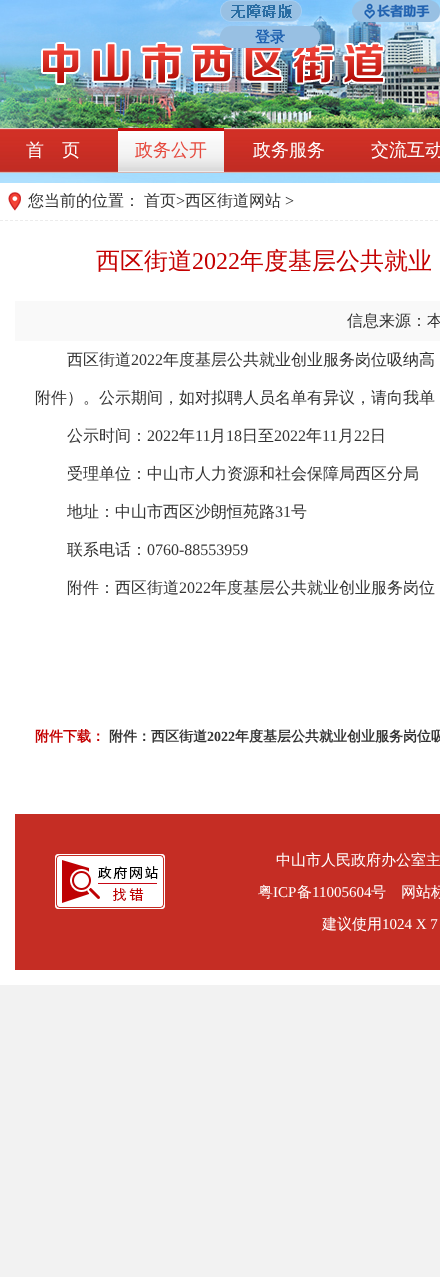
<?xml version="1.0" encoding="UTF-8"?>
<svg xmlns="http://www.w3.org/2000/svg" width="440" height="1277">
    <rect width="100%" height="100%" fill="#F2F2F2"/>
    <image x="0" y="0" width="440" height="183" href="img_01.png"/>
    <image x="220" y="0" width="82" height="22" href="img_02.png"/>
    <image x="352" y="0" width="88" height="22" href="img_03.png"/>
    <image x="41" y="42" width="344" height="43" href="img_04.png"/>
    <rect x="220" y="26" width="100" height="22" rx="11" fill="#98C0E3"/>
    <text x="255" y="42" font-family="WenQuanYi Zen Hei" font-size="15" font-weight="700" fill="#1D60AF">登录</text>
    <image x="0" y="128" width="440" height="45" href="img_05.png"/>
    <text x="26" y="156" font-family="WenQuanYi Zen Hei" font-size="18" font-weight="500" fill="#FFFFFF">首　页</text>
    <image x="118" y="128" width="106" height="44" href="img_06.png"/>
    <text x="135" y="156" font-family="WenQuanYi Zen Hei" font-size="18" font-weight="500" fill="#E5493D">政务公开</text>
    <text x="253" y="156" font-family="WenQuanYi Zen Hei" font-size="18" font-weight="500" fill="#FFFFFF">政务服务</text>
    <text x="371" y="156" font-family="WenQuanYi Zen Hei" font-size="18" font-weight="500" fill="#FFFFFF">交流互动</text>
    <rect x="0" y="183" width="440" height="802" fill="#FFFFFF"/>
    <image x="8" y="192" width="13" height="19" href="img_07.png"/>
    <path d="M 0 220.5 H 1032" fill="none" stroke="#ECECEC" stroke-dasharray="3 2"/>
    <text x="28" y="206" font-family="WenQuanYi Zen Hei" font-size="16" font-weight="500" fill="#333333">您当前的位置：</text>
    <text x="144" y="206" font-family="WenQuanYi Zen Hei" font-size="16" font-weight="500" fill="#333333">首页</text>
    <text x="176" y="206" font-family="Liberation Serif" font-size="16" fill="#333333">&gt;</text>
    <text x="185" y="206" font-family="WenQuanYi Zen Hei" font-size="16" font-weight="500" fill="#333333">西区街道网站</text>
    <text x="285" y="206" font-family="Liberation Serif" font-size="16" fill="#333333">&gt;</text>
    <text x="96" y="269" font-family="WenQuanYi Zen Hei" font-size="24" font-weight="500" fill="#C40000">西区街道</text>
    <text x="192" y="269" font-family="Liberation Serif" font-size="24" fill="#C40000">2022</text>
    <text x="240" y="269" font-family="WenQuanYi Zen Hei" font-size="24" font-weight="500" fill="#C40000">年度基层公共就业</text>
    <rect x="15" y="301" width="425" height="40" fill="#F9F9F9"/>
    <text x="347" y="326" font-family="WenQuanYi Zen Hei" font-size="16" font-weight="500" fill="#333333">信息来源：本</text>
    <text x="67" y="365" font-family="WenQuanYi Zen Hei" font-size="16" font-weight="500" fill="#333333">西区街道</text>
    <text x="131" y="365" font-family="Liberation Serif" font-size="16" fill="#333333">2022</text>
    <text x="163" y="365" font-family="WenQuanYi Zen Hei" font-size="16" font-weight="500" fill="#333333">年度基层公共就业创业服务岗位吸纳高</text>
    <text x="35" y="403" font-family="WenQuanYi Zen Hei" font-size="16" font-weight="500" fill="#333333">附件）。公示期间，如对拟聘人员名单有异议，请向我单</text>
    <text x="67" y="441" font-family="WenQuanYi Zen Hei" font-size="16" font-weight="500" fill="#333333">公示时间：</text>
    <text x="147" y="441" font-family="Liberation Serif" font-size="16" fill="#333333">2022</text>
    <text x="179" y="441" font-family="WenQuanYi Zen Hei" font-size="16" font-weight="500" fill="#333333">年</text>
    <text x="195" y="441" font-family="Liberation Serif" font-size="16" fill="#333333">11</text>
    <text x="210" y="441" font-family="WenQuanYi Zen Hei" font-size="16" font-weight="500" fill="#333333">月</text>
    <text x="226" y="441" font-family="Liberation Serif" font-size="16" fill="#333333">18</text>
    <text x="242" y="441" font-family="WenQuanYi Zen Hei" font-size="16" font-weight="500" fill="#333333">日至</text>
    <text x="274" y="441" font-family="Liberation Serif" font-size="16" fill="#333333">2022</text>
    <text x="306" y="441" font-family="WenQuanYi Zen Hei" font-size="16" font-weight="500" fill="#333333">年</text>
    <text x="322" y="441" font-family="Liberation Serif" font-size="16" fill="#333333">11</text>
    <text x="338" y="441" font-family="WenQuanYi Zen Hei" font-size="16" font-weight="500" fill="#333333">月</text>
    <text x="354" y="441" font-family="Liberation Serif" font-size="16" fill="#333333">22</text>
    <text x="370" y="441" font-family="WenQuanYi Zen Hei" font-size="16" font-weight="500" fill="#333333">日</text>
    <text x="67" y="479" font-family="WenQuanYi Zen Hei" font-size="16" font-weight="500" fill="#333333">受理单位：中山市人力资源和社会保障局西区分局</text>
    <text x="67" y="517" font-family="WenQuanYi Zen Hei" font-size="16" font-weight="500" fill="#333333">地址：中山市西区沙朗恒苑路</text>
    <text x="275" y="517" font-family="Liberation Serif" font-size="16" fill="#333333">31</text>
    <text x="291" y="517" font-family="WenQuanYi Zen Hei" font-size="16" font-weight="500" fill="#333333">号</text>
    <text x="67" y="555" font-family="WenQuanYi Zen Hei" font-size="16" font-weight="500" fill="#333333">联系电话：</text>
    <text x="147" y="555" font-family="Liberation Serif" font-size="16" fill="#333333">0760-88553959</text>
    <text x="67" y="593" font-family="WenQuanYi Zen Hei" font-size="16" font-weight="500" fill="#333333">附件：西区街道</text>
    <text x="179" y="593" font-family="Liberation Serif" font-size="16" fill="#333333">2022</text>
    <text x="211" y="593" font-family="WenQuanYi Zen Hei" font-size="16" font-weight="500" fill="#333333">年度基层公共就业创业服务岗位</text>
    <text x="35" y="741" font-family="WenQuanYi Zen Hei" font-size="14" font-weight="700" fill="#C40000">附件下载：</text>
    <text x="109" y="741" font-family="WenQuanYi Zen Hei" font-size="14" font-weight="700" fill="#333333">附件：西区街道</text>
    <text x="207" y="741" font-family="Liberation Serif" font-size="14" font-weight="700" fill="#333333">2022</text>
    <text x="235" y="741" font-family="WenQuanYi Zen Hei" font-size="14" font-weight="700" fill="#333333">年度基层公共就业创业服务岗位吸</text>
    <rect x="15" y="814" width="425" height="156" fill="#C52D24"/>
    <image x="55" y="854" width="110" height="55" href="img_08.png"/>
    <text x="276" y="865" font-family="WenQuanYi Zen Hei" font-size="15" font-weight="500" fill="#FFFFFF">中山市人民政府办公室主</text>
    <text x="258" y="897" font-family="WenQuanYi Zen Hei" font-size="15" font-weight="500" fill="#FFFFFF">粤</text>
    <text x="273" y="897" font-family="Liberation Serif" font-size="15" fill="#FFFFFF">ICP</text>
    <text x="297" y="897" font-family="WenQuanYi Zen Hei" font-size="15" font-weight="500" fill="#FFFFFF">备</text>
    <text x="312" y="897" font-family="Liberation Serif" font-size="15" fill="#FFFFFF">11005604</text>
    <text x="371" y="897" font-family="WenQuanYi Zen Hei" font-size="15" font-weight="500" fill="#FFFFFF">号</text>
    <text x="401" y="897" font-family="WenQuanYi Zen Hei" font-size="15" font-weight="500" fill="#FFFFFF">网站标</text>
    <text x="322" y="929" font-family="WenQuanYi Zen Hei" font-size="15" font-weight="500" fill="#FFFFFF">建议使用</text>
    <text x="382" y="929" font-family="Liberation Serif" font-size="15" fill="#FFFFFF">1024 X 7</text>
</svg>
